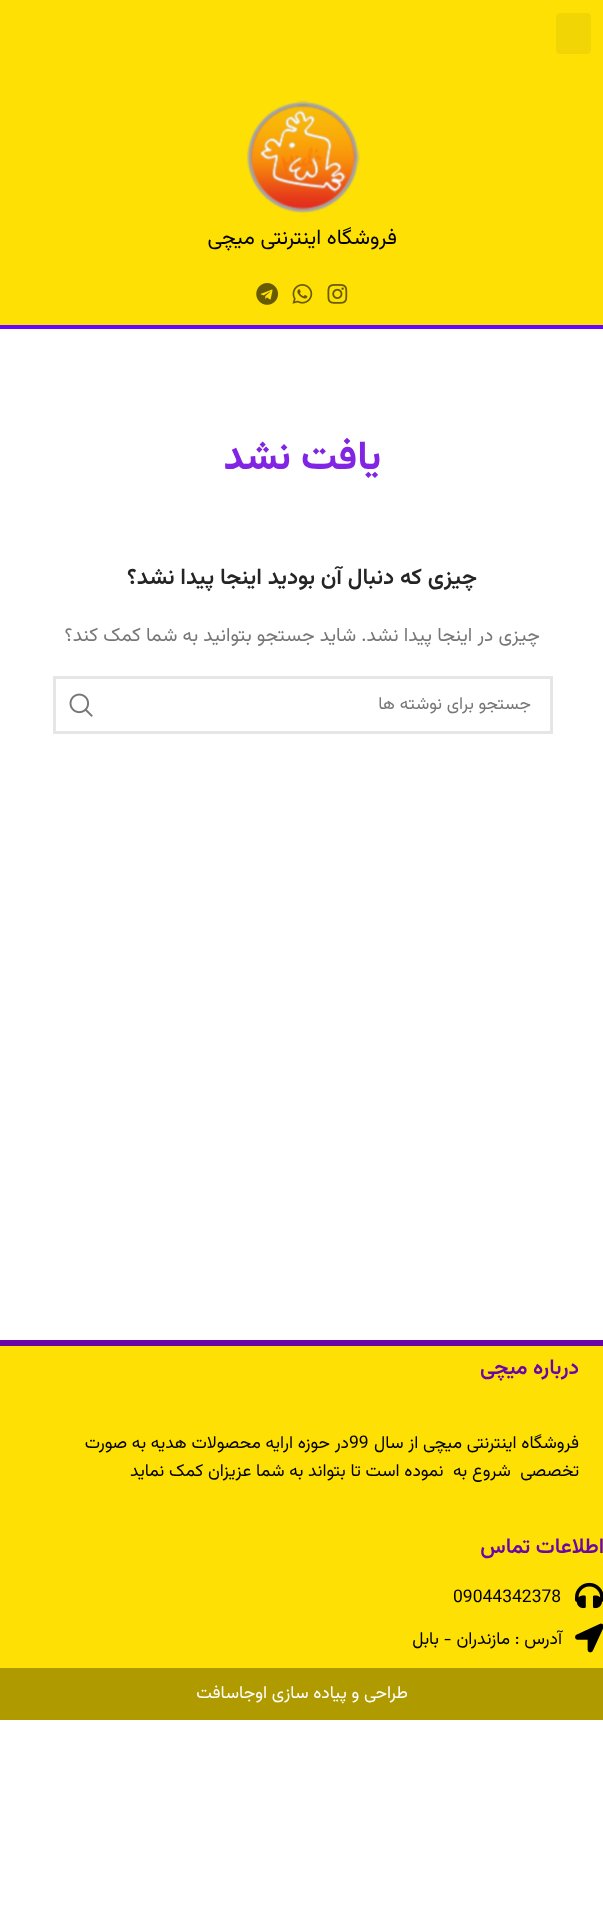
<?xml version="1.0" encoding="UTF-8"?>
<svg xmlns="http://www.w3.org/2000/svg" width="603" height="1922">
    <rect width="100%" height="100%" fill="#FFFFFF"/>
    <rect x="0" y="0" width="603" height="325" fill="#FEE005"/>
    <rect x="556" y="13" width="35" height="41" rx="4" fill="#F1D505"/>
    <image x="246" y="100" width="114" height="113" href="img_01.png"/>
    <text x="397" y="244" font-family="Vazirmatn" font-size="21.25" direction="rtl" fill="#000000">فروشگاه اینترنتی میچی</text>
    <image x="327" y="284" width="21" height="20" href="img_02.png"/>
    <image x="292" y="284" width="21" height="20" href="img_03.png"/>
    <image x="256" y="283" width="22" height="22" href="img_04.png"/>
    <rect x="0" y="325" width="603" height="4" fill="#6805FE"/>
    <text x="381" y="469" font-family="Vazirmatn" font-size="40" font-weight="700" direction="rtl" fill="#8224E3">یافت نشد</text>
    <text x="477" y="584" font-family="Vazirmatn" font-size="22.5" font-weight="600" direction="rtl" fill="#242424">چیزی که دنبال آن بودید اینجا پیدا نشد؟</text>
    <text x="540" y="641" font-family="Vazirmatn" font-size="19.25" direction="rtl" fill="#777777">چیزی در اینجا پیدا نشد. شاید جستجو بتوانید به شما کمک کند؟</text>
    <rect x="54.5" y="677.5" width="497" height="55" fill="none" stroke="#E6E6E6" stroke-width="3"/>
    <text x="531" y="709" font-family="Vazirmatn" font-size="17.5" direction="rtl" fill="#777777">جستجو برای نوشته ها</text>
    <image x="69" y="693" width="24" height="24" href="img_05.png"/>
    <rect x="0" y="1340" width="603" height="6" fill="#6B05A7"/>
    <rect x="0" y="1346" width="603" height="322" fill="#FEE005"/>
    <text x="579" y="1374" font-family="Vazirmatn" font-size="21.25" font-weight="600" direction="rtl" fill="#6B05A7">درباره میچی</text>
    <text x="579" y="1448" font-family="Vazirmatn" font-size="17.5" direction="rtl" fill="#000000">فروشگاه اینترنتی میچی از سال</text>
    <text x="349" y="1448" font-family="Vazirmatn" font-size="17.5" fill="#000000">99</text>
    <text x="349" y="1448" font-family="Vazirmatn" font-size="17.5" direction="rtl" fill="#000000">در حوزه ارایه محصولات هدیه به صورت</text>
    <text x="579" y="1476" font-family="Vazirmatn" font-size="17.5" direction="rtl" fill="#000000" xml:space="preserve">تخصصی  شروع به  نموده است تا بتواند به شما عزیزان کمک نماید</text>
    <text x="604" y="1553" font-family="Vazirmatn" font-size="21.25" font-weight="600" direction="rtl" fill="#6B05A7">اطلاعات تماس</text>
    <image x="575" y="1582" width="28" height="27" href="img_06.png"/>
    <text x="453" y="1602" font-family="Vazirmatn" font-size="17.5" fill="#000000">09044342378</text>
    <image x="575" y="1623" width="28" height="30" href="img_07.png"/>
    <text x="562" y="1644" font-family="Vazirmatn" font-size="17.5" direction="rtl" fill="#000000">آدرس : مازندران - بابل</text>
    <rect x="0" y="1668" width="603" height="52" fill="#AF9A00"/>
    <text x="408" y="1698" font-family="Vazirmatn" font-size="17.5" direction="rtl" fill="#FFFFFF">طراحی و پیاده سازی اوجاسافت</text>
</svg>
